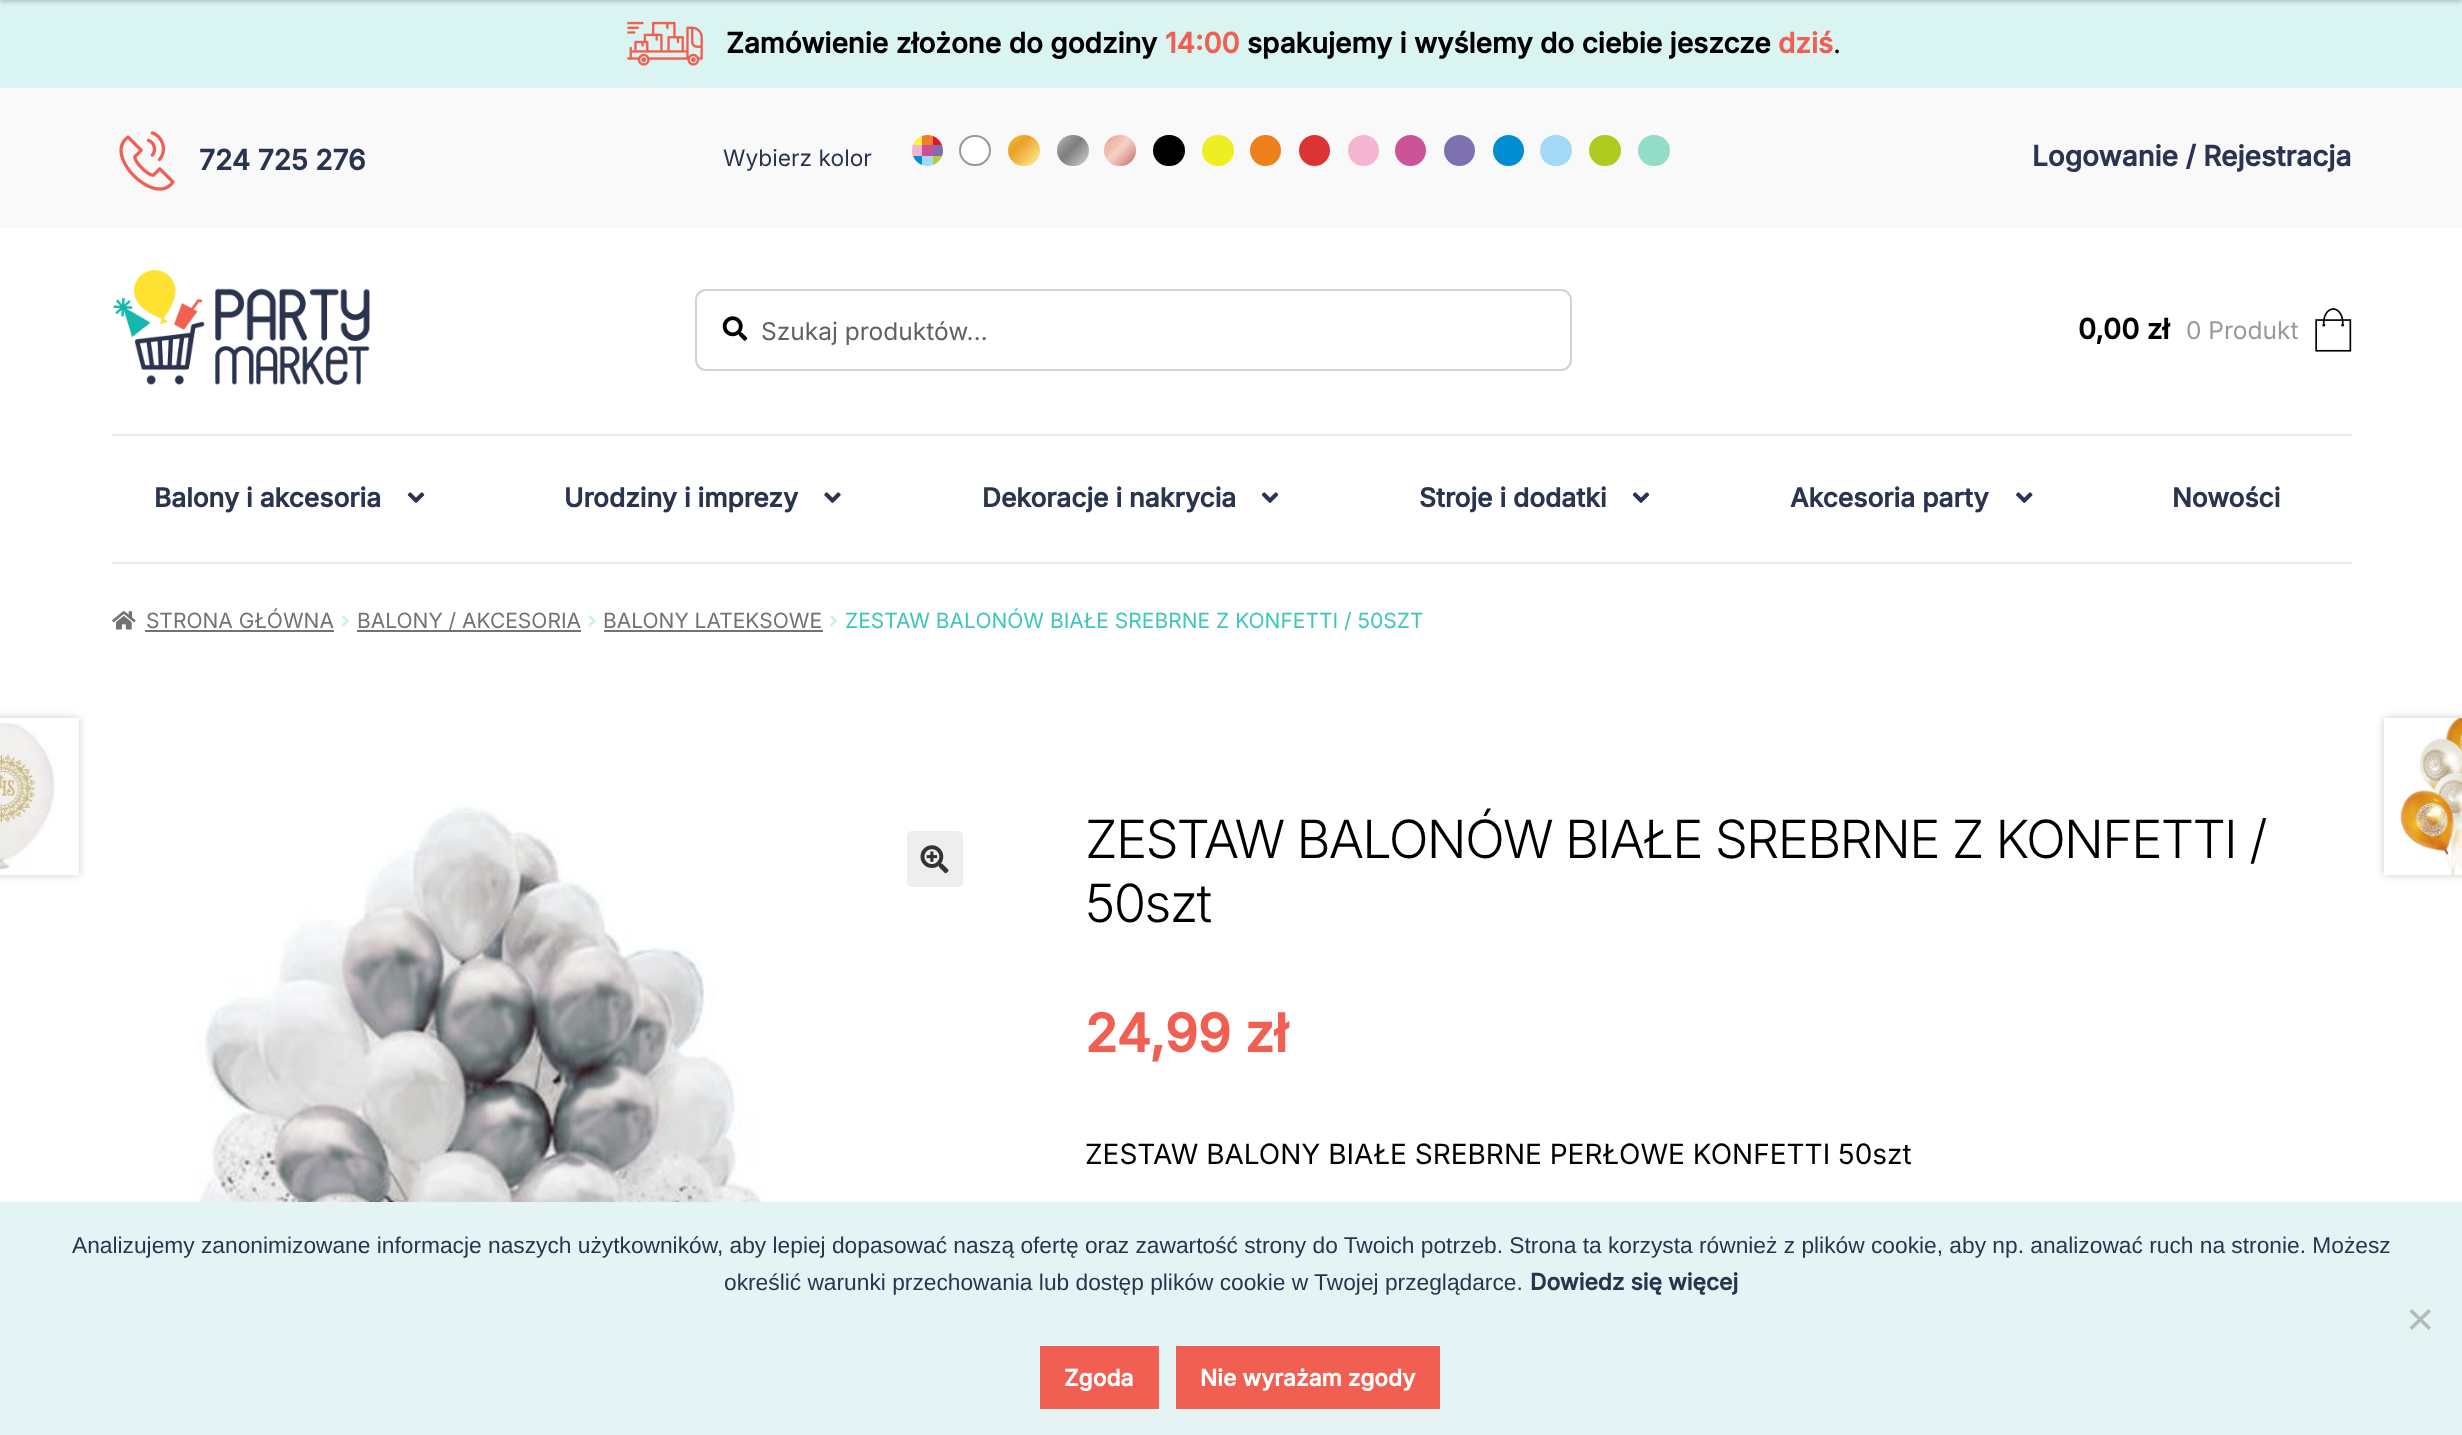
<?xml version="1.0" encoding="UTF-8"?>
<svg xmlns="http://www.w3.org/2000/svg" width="2462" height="1435">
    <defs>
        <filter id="blur1" x="-50%" y="-200%" width="200%" height="500%"><feGaussianBlur stdDeviation="2"/></filter>
        <linearGradient id="g1" gradientUnits="userSpaceOnUse" x1="1007" y1="135" x2="1035" y2="162"><stop offset="0" stop-color="#EBC634"/><stop offset="0.42" stop-color="#EAA028"/><stop offset="1" stop-color="#F9E281"/></linearGradient>
        <linearGradient id="g2" gradientUnits="userSpaceOnUse" x1="1058" y1="137" x2="1091" y2="167"><stop offset="0" stop-color="#B8B8B8"/><stop offset="0.17" stop-color="#9B9B9B"/><stop offset="0.32" stop-color="#868686"/><stop offset="0.42" stop-color="#7F7F7F"/><stop offset="1" stop-color="#DBDBDB"/></linearGradient>
        <linearGradient id="g3" gradientUnits="userSpaceOnUse" x1="1104" y1="135" x2="1132" y2="162"><stop offset="0" stop-color="#CB8180"/><stop offset="0.24" stop-color="#EFB8A9"/><stop offset="0.34" stop-color="#F0BCAE"/><stop offset="0.46" stop-color="#F3C8BB"/><stop offset="0.52" stop-color="#F6D1C6"/><stop offset="0.62" stop-color="#F0C6BC"/><stop offset="0.8" stop-color="#E0A8A2"/><stop offset="1" stop-color="#CB8180"/></linearGradient>
        <filter id="blur2" x="-50%" y="-200%" width="200%" height="500%"><feGaussianBlur stdDeviation="4.5"/></filter>
        <clipPath id="clip1"><path d="M 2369 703 H 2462 V 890 H 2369 Z M 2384 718 H 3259 V 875 H 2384 Z" clip-rule="evenodd"/></clipPath>
    </defs>
    <rect width="100%" height="100%" fill="#FFFFFF"/>
    <rect x="0" y="0" width="2462" height="88" fill="#DAF4F2"/>
    <rect x="0" y="-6" width="2462" height="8" fill="#000000" fill-opacity="0.2" filter="url(#blur1)"/>
    <image x="627" y="21" width="76" height="45" href="img_01.png"/>
    <text x="726" y="53" font-family="Inter" font-size="28" font-weight="700" fill="#000000">Zamówienie złożone do godziny</text>
    <text x="1165" y="53" font-family="Inter" font-size="28" font-weight="700" fill="#F15F52">14:00</text>
    <text x="1247" y="53" font-family="Inter" font-size="28" font-weight="700" fill="#000000">spakujemy i wyślemy do ciebie jeszcze</text>
    <text x="1778" y="53" font-family="Inter" font-size="28" font-weight="700" fill="#F15F52">dziś</text>
    <text x="1833" y="53" font-family="Inter" font-size="28" fill="#000000">.</text>
    <rect x="0" y="88" width="2462" height="140" fill="#F9F9F9"/>
    <image x="119" y="131" width="56" height="60" href="img_02.png"/>
    <text x="199" y="170" font-family="Inter" font-size="28" font-weight="700" fill="#2A344E">724 725 276</text>
    <text x="723" y="166" font-family="Inter" font-size="22.75" fill="#2A344E">Wybierz kolor</text>
    <image x="912" y="135" width="31" height="31" href="img_03.png"/>
    <rect x="960" y="136" width="30" height="29" rx="14.5" fill="#FFFFFF" stroke="#999999" stroke-width="2"/>
    <rect x="1008" y="135" width="32" height="31" rx="15.5" fill="url(#g1)"/>
    <rect x="1057" y="135" width="32" height="31" rx="15.5" fill="url(#g2)"/>
    <rect x="1104" y="135" width="32" height="31" rx="15.5" fill="url(#g3)"/>
    <rect x="1153" y="135" width="32" height="31" rx="15.5" fill="#000000"/>
    <rect x="1202" y="135" width="32" height="31" rx="15.5" fill="#EEEE22"/>
    <circle cx="1265.5" cy="150.5" r="15.5" fill="#EF7F1A"/>
    <circle cx="1314.5" cy="150.5" r="15.5" fill="#DD3333"/>
    <circle cx="1363.5" cy="150.5" r="15.5" fill="#F5B5D2"/>
    <circle cx="1410.5" cy="150.5" r="15.5" fill="#CB5499"/>
    <circle cx="1459.5" cy="150.5" r="15.5" fill="#7E71B1"/>
    <circle cx="1508.5" cy="150.5" r="15.5" fill="#008DD2"/>
    <rect x="1540" y="135" width="32" height="31" rx="15.5" fill="#A2D9F7"/>
    <rect x="1589" y="135" width="32" height="31" rx="15.5" fill="#B0CB1F"/>
    <rect x="1638" y="135" width="32" height="31" rx="15.5" fill="#92DDC8"/>
    <text x="2032" y="166" font-family="Inter" font-size="28" font-weight="700" fill="#2A344E">Logowanie / Rejestracja</text>
    <image x="113" y="270" width="257" height="115" href="img_04.png"/>
    <rect x="696" y="290" width="875" height="80" rx="10" fill="none" stroke="#D1D2D4" stroke-width="2"/>
    <image x="722" y="316" width="26" height="25" href="img_05.png"/>
    <text x="761" y="340" font-family="Inter" font-size="24.5" fill="#616161">Szukaj produktów…</text>
    <text x="2078" y="339" font-family="Inter" font-size="28" font-weight="700" fill="#000000">0,00 zł</text>
    <text x="2186" y="339" font-family="Inter" font-size="24.5" fill="#999999">0 Produkt</text>
    <image x="2315" y="308" width="37" height="44" href="img_06.png"/>
    <rect x="112" y="434" width="2240" height="2" fill="#E9E9E9"/>
    <rect x="112" y="562" width="2240" height="2" fill="#E9E9E9"/>
    <text x="154" y="507" font-family="Inter" font-size="26.25" font-weight="700" fill="#2A344E">Balony i akcesoria</text>
    <image x="407" y="492" width="18" height="11" href="img_07.png"/>
    <text x="564" y="507" font-family="Inter" font-size="26.25" font-weight="700" fill="#2A344E">Urodziny i imprezy</text>
    <image x="824" y="492" width="17" height="11" href="img_08.png"/>
    <text x="982" y="507" font-family="Inter" font-size="26.25" font-weight="700" fill="#2A344E">Dekoracje i nakrycia</text>
    <image x="1261" y="492" width="18" height="11" href="img_07.png"/>
    <text x="1419" y="507" font-family="Inter" font-size="26.25" font-weight="700" fill="#2A344E">Stroje i dodatki</text>
    <image x="1632" y="492" width="18" height="11" href="img_07.png"/>
    <text x="1790" y="507" font-family="Inter" font-size="26.25" font-weight="700" fill="#2A344E">Akcesoria party</text>
    <image x="2016" y="492" width="17" height="11" href="img_09.png"/>
    <text x="2172" y="507" font-family="Inter" font-size="26.25" font-weight="700" fill="#2A344E">Nowości</text>
    <image x="112" y="611" width="24" height="19" href="img_10.png"/>
    <text x="146" y="628" font-family="Inter" font-size="21" fill="#727272">STRONA GŁÓWNA</text>
    <rect x="145" y="630" width="189" height="2" fill="#727272"/>
    <image x="341" y="615" width="8" height="12" href="img_11.png"/>
    <rect x="357" y="630" width="224" height="2" fill="#727272"/>
    <text x="357" y="628" font-family="Inter" font-size="21" fill="#727272">BALONY / AKCESORIA</text>
    <image x="588" y="615" width="8" height="12" href="img_12.png"/>
    <text x="603" y="628" font-family="Inter" font-size="21" fill="#727272">BALONY LATEKSOWE</text>
    <rect x="604" y="630" width="219" height="2" fill="#727272"/>
    <image x="830" y="615" width="8" height="12" href="img_13.png"/>
    <text x="845" y="628" font-family="Inter" font-size="21" fill="#3EC6BA">ZESTAW BALONÓW BIAŁE SREBRNE Z KONFETTI / 50SZT</text>
    <rect x="-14" y="718" width="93" height="157" fill="#000000" fill-opacity="0.2" filter="url(#blur2)"/>
    <rect x="0" y="718" width="79" height="157" fill="#FFFFFF"/>
    <image x="0" y="723" width="56" height="147" href="img_14.png"/>
    <g clip-path="url(#clip1)">
        <rect x="2384" y="718" width="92" height="157" fill="#000000" fill-opacity="0.2" filter="url(#blur2)"/>
    </g>
    <image x="2399" y="718" width="63" height="157" href="img_15.png"/>
    <image x="168" y="807" width="601" height="395" href="img_16.png"/>
    <rect x="907" y="831" width="56" height="56" rx="5" fill="#EEEEEE"/>
    <image x="920" y="845" width="29" height="29" href="img_17.png"/>
    <text font-family="Inter" font-size="52.5" font-weight="300" letter-spacing="-1.75" fill="#000000">
        <tspan x="1085" y="858">ZESTAW BALONÓW BIAŁE SREBRNE Z KONFETTI /</tspan>
        <tspan x="1085" y="922">50szt</tspan>
    </text>
    <text x="1085" y="1052" font-family="Inter" font-size="52.5" font-weight="700" fill="#F15F52">24,99 zł</text>
    <text x="1085" y="1164" font-family="Inter" font-size="28" fill="#000000">ZESTAW BALONY BIAŁE SREBRNE PERŁOWE KONFETTI 50szt</text>
    <rect x="0" y="1202" width="2462" height="233" fill="#E4F4F4"/>
    <text x="72" y="1253" font-family="Liberation Sans" font-size="22.75" fill="#2A344E">Analizujemy zanonimizowane informacje naszych użytkowników, aby lepiej dopasować naszą ofertę oraz zawartość strony do Twoich potrzeb. Strona ta korzysta również z plików cookie, aby np. analizować ruch na stronie. Możesz</text>
    <text x="724" y="1290" font-family="Liberation Sans" font-size="22.75" fill="#2A344E">określić warunki przechowania lub dostęp plików cookie w Twojej przeglądarce.</text>
    <text x="1530" y="1290" font-family="Inter" font-size="22.75" font-weight="700" fill="#2A344E">Dowiedz się więcej</text>
    <path d="M 2428.5 1309 L 2431 1311.5 L 2412 1330 L 2409.5 1327.5 Z" fill="#B2BABA"/>
    <path d="M 2409.5 1311.5 L 2412 1309 L 2431 1327.5 L 2428.5 1330 Z" fill="#B2BABA"/>
    <rect x="1040" y="1346" width="119" height="63" fill="#F15F52"/>
    <text x="1064" y="1386" font-family="Inter" font-size="22.75" font-weight="700" fill="#FFFFFF">Zgoda</text>
    <rect x="1176" y="1346" width="264" height="63" fill="#F15F52"/>
    <text x="1200" y="1386" font-family="Inter" font-size="22.75" font-weight="700" fill="#FFFFFF">Nie wyrażam zgody</text>
</svg>
